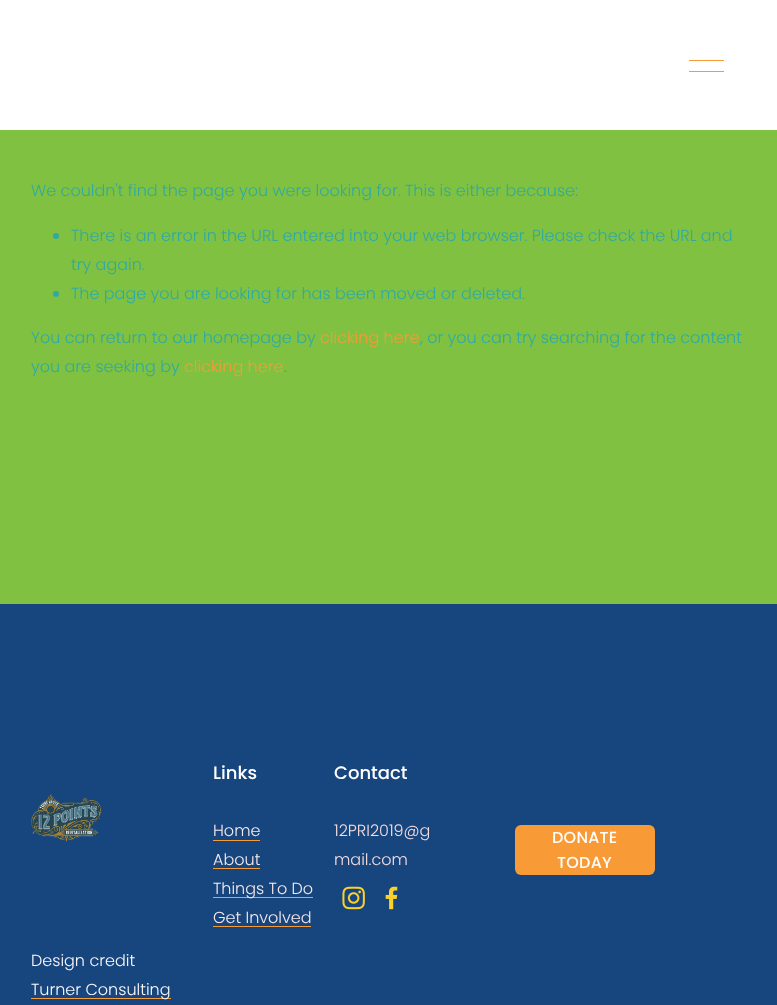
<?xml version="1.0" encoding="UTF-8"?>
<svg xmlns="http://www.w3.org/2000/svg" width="777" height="1005">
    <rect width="100%" height="100%" fill="#80C141"/>
    <rect x="0" y="0" width="777" height="130" fill="#FFFFFF"/>
    <rect x="689" y="60" width="35" height="1" fill="#F89A36"/>
    <rect x="689" y="71" width="35" height="1" fill="#F89A36"/>
    <text x="31" y="196" font-family="Poppins" font-size="16" font-weight="300" fill="#2FAAA2">We couldn't find the page you were looking for. This is either because:</text>
    <circle cx="56" cy="236" r="3" fill="#2FAAA2"/>
    <text font-family="Poppins" font-size="16" font-weight="300" fill="#2FAAA2">
        <tspan x="71" y="241">There is an error in the URL entered into your web browser. Please check the URL and</tspan>
        <tspan x="71" y="270">try again.</tspan>
    </text>
    <circle cx="56" cy="294" r="3" fill="#2FAAA2"/>
    <text x="71" y="299" font-family="Poppins" font-size="16" font-weight="300" fill="#2FAAA2">The page you are looking for has been moved or deleted.</text>
    <text x="31" y="343" font-family="Poppins" font-size="16" font-weight="300" fill="#2FAAA2">You can return to our homepage by</text>
    <text x="320" y="343" font-family="Poppins" font-size="16" font-weight="300" fill="#F89A36">clicking here</text>
    <text x="420" y="343" font-family="Poppins" font-size="16" font-weight="300" fill="#2FAAA2">, or you can try searching for the content</text>
    <text x="31" y="372" font-family="Poppins" font-size="16" font-weight="300" fill="#2FAAA2">you are seeking by</text>
    <text x="184" y="372" font-family="Poppins" font-size="16" font-weight="300" fill="#F89A36">clicking here</text>
    <text x="284" y="372" font-family="Poppins" font-size="16" font-weight="300" fill="#2FAAA2">.</text>
    <rect x="0" y="604" width="777" height="401" fill="#17467F"/>
    <image x="31" y="794" width="71" height="48" href="img_01.png"/>
    <text x="213" y="779" font-family="Poppins" font-size="18" font-weight="500" fill="#FFFEFD">Links</text>
    <text x="213" y="836" font-family="Poppins" font-size="16" font-weight="300" fill="#F8EAEA">Home</text>
    <rect x="213" y="840" width="47" height="1" fill="#F89A36"/>
    <text x="213" y="865" font-family="Poppins" font-size="16" font-weight="300" fill="#F8EAEA">About</text>
    <rect x="213" y="868" width="47" height="1" fill="#F89A36"/>
    <rect x="213" y="897" width="100" height="1" fill="#F89A36"/>
    <text font-family="Poppins" font-size="16" font-weight="300" fill="#F8EAEA">
        <tspan x="213" y="894">Things To Do</tspan>
        <tspan x="213" y="923">Get Involved</tspan>
    </text>
    <rect x="213" y="926" width="98" height="1" fill="#F89A36"/>
    <text x="334" y="779" font-family="Poppins" font-size="18" font-weight="500" fill="#FFFEFD">Contact</text>
    <text font-family="Poppins" font-size="16" font-weight="300" fill="#F8DDDD">
        <tspan x="334" y="836">12PRI2019@g</tspan>
        <tspan x="334" y="865">mail.com</tspan>
    </text>
    <rect x="515" y="825" width="140" height="50" rx="6" fill="#F89A36"/>
    <text x="552" y="843" font-family="Poppins" font-size="16" font-weight="500" letter-spacing="0.25" fill="#FFFEFD">DONATE</text>
    <text x="557" y="868" font-family="Poppins" font-size="16" font-weight="500" letter-spacing="0.25" fill="#FFFEFD">TODAY</text>
    <image x="342" y="886" width="23" height="24" href="img_02.png"/>
    <image x="385" y="886" width="13" height="24" href="img_03.png"/>
    <text x="31" y="966" font-family="Poppins" font-size="16" font-weight="300" fill="#FCF8F8">Design credit</text>
    <rect x="31" y="998" width="140" height="1" fill="#F89A36"/>
    <text x="31" y="995" font-family="Poppins" font-size="16" font-weight="300" fill="#FCF8F8">Turner Consulting</text>
</svg>
